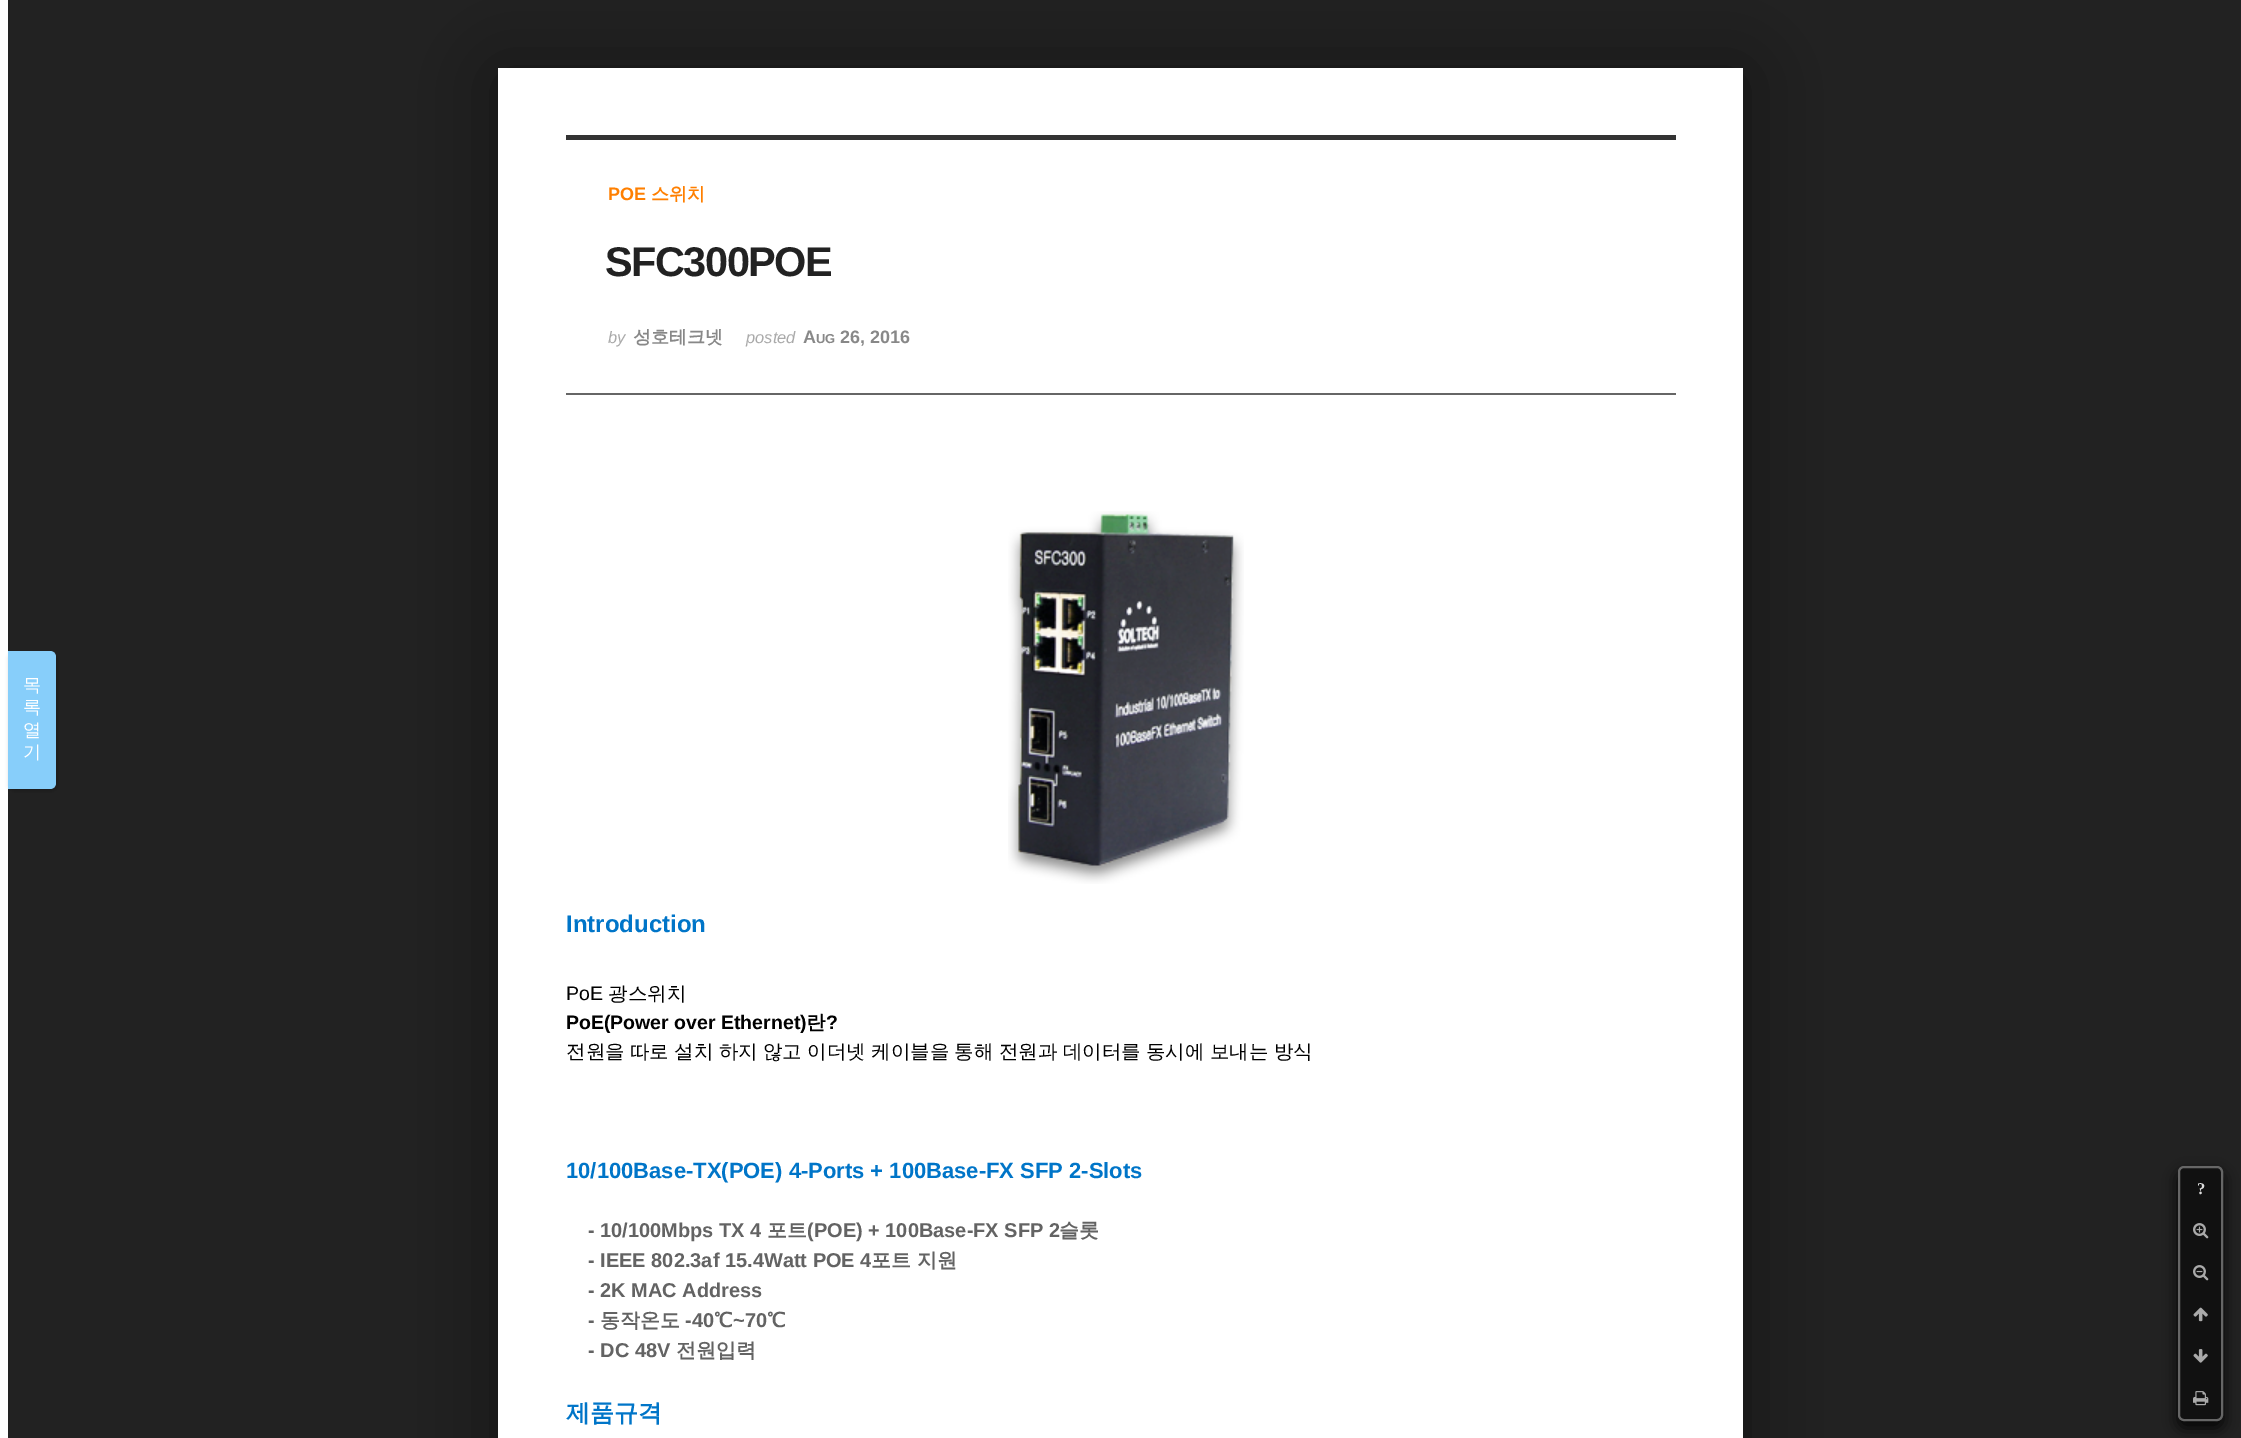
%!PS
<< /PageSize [2241 1438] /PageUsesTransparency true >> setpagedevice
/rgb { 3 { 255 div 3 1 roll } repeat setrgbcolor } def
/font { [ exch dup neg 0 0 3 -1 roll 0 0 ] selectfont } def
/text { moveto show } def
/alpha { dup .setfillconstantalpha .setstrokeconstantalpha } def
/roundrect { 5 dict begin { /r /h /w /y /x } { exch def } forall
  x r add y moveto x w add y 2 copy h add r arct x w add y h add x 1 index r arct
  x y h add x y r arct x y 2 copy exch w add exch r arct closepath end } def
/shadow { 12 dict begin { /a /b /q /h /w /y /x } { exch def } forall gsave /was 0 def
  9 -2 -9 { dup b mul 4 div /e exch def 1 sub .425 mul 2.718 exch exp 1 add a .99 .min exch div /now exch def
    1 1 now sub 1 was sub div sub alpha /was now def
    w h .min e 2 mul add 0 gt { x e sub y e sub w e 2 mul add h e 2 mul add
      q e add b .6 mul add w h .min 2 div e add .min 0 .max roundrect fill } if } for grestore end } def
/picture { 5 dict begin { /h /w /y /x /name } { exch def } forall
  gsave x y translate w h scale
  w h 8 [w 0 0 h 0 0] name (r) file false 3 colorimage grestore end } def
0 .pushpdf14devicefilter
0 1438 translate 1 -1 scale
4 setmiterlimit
34 34 34 rgb
0 0 2241 1438 rectfill
0 0 0 rgb
498 74 1245 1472 0 36 0.5 shadow
255 255 255 rgb
498 68 1245 1370 rectfill
0 0 8 1438 rectfill
0 0 0 rgb
9 653 48 138 6 2 0.2 shadow
135 206 250 rgb
8 651 moveto 42 0 rlineto 3.5 0 6 2.5 6 6 rcurveto 0 126 rlineto 0 3.5 -2.5 6 -6 6 rcurveto -42 0 rlineto closepath fill
51 51 51 rgb
566 135 1110 5 rectfill
102 102 102 rgb
566 393 1110 2 rectfill
0 0 0 rgb
2178 1173 45 255 6 7.5 0.9 shadow
17 17 17 rgb
2179 1167 43 253 5 roundrect gsave fill grestore
102 102 102 rgb
2 setlinewidth
stroke
(img_01.rgb) 2193 1223 16 16 picture
(img_02.rgb) 2193 1265 16 16 picture
(img_03.rgb) 2193 1307 15 15 picture
(img_04.rgb) 2193 1349 15 14 picture
(img_05.rgb) 2193 1391 16 15 picture
(img_06.rgb) 1008 511 236 373 picture
/WenQuanYiZenHei-Medium 18 font
255 255 255 rgb
(목) 23 691 text
(록) 23 713 text
(열) 23 736 text
(기) 23 758 text
/LiberationSans-Bold 18 font
255 127 0 rgb
(POE) 608 200 text
/WenQuanYiZenHei-Bold 18 font
(스위치) 651 200 text
/LiberationSans-Bold 41.5 font
34 34 34 rgb
605 276 moveto -1.5 0 (SFC300POE) ashow
/LiberationSans-Italic 16.5 font
170 170 170 rgb
(by) 608 343 text
/WenQuanYiZenHei-Bold 18 font
136 136 136 rgb
(성호테크넷) 633 343 text
/LiberationSans-Italic 16.5 font
170 170 170 rgb
(posted) 746 343 text
/LiberationSans-Bold 18 font
136 136 136 rgb
(A) 803 343 text
/LiberationSans-Bold 13 font
(UG) 816 343 text
/LiberationSans-Bold 18 font
(26, 2016) 840 343 text
/LiberationSerif-Bold 16.5 font
221 221 221 rgb
2197 1194 moveto -1.5 0 (?) ashow
/LiberationSans-Bold 24 font
0 117 200 rgb
(Introduction) 566 932 text
/LiberationSans-Regular 19.5 font
0 0 0 rgb
(PoE) 566 1000 text
/WenQuanYiZenHei-Medium 19.5 font
(광스위치) 608 1000 text
/LiberationSans-Bold 19.5 font
(PoE\(Power over Ethernet\)) 566 1029 text
/WenQuanYiZenHei-Bold 19.5 font
(란) 806 1029 text
/LiberationSans-Bold 19.5 font
(?) 826 1029 text
/WenQuanYiZenHei-Medium 19.5 font
566 1058 moveto -0.5 0 32 (전원을 따로 설치 하지 않고 이더넷 케이블을 통해 전원과 데이터를 동시에 보내는 방식) widthshow
/LiberationSans-Bold 22 font
0 117 200 rgb
(10/100Base-TX\(POE\) 4-Ports + 100Base-FX SFP 2-Slots) 566 1178 text
/LiberationSans-Bold 20 font
99 99 99 rgb
(- 10/100Mbps TX 4) 588 1237 text
/WenQuanYiZenHei-Bold 20 font
(포트) 767 1237 text
/LiberationSans-Bold 20 font
(\(POE\) + 100Base-FX SFP 2) 807 1237 text
/WenQuanYiZenHei-Bold 20 font
(슬롯) 1059 1237 text
/LiberationSans-Bold 20 font
(- IEEE 802.3af 15.4Watt POE 4) 588 1267 text
/WenQuanYiZenHei-Bold 20 font
(포트) 871 1267 text
(지원) 917 1267 text
/LiberationSans-Bold 20 font
(- 2K MAC Address) 588 1297 text
(-) 588 1327 text
/WenQuanYiZenHei-Bold 20 font
(동작온도) 600 1327 text
/LiberationSans-Bold 20 font
(-40) 685 1327 text
/WenQuanYiZenHei-Bold 20 font
(℃) 714 1327 text
/LiberationSans-Bold 20 font
(~70) 733 1327 text
/WenQuanYiZenHei-Bold 20 font
(℃) 767 1327 text
/LiberationSans-Bold 20 font
(- DC 48V) 588 1357 text
/WenQuanYiZenHei-Bold 20 font
(전원입력) 676 1357 text
/WenQuanYiZenHei-Bold 24 font
0 117 200 rgb
(제품규격) 566 1421 text
.poppdf14devicefilter showpage
